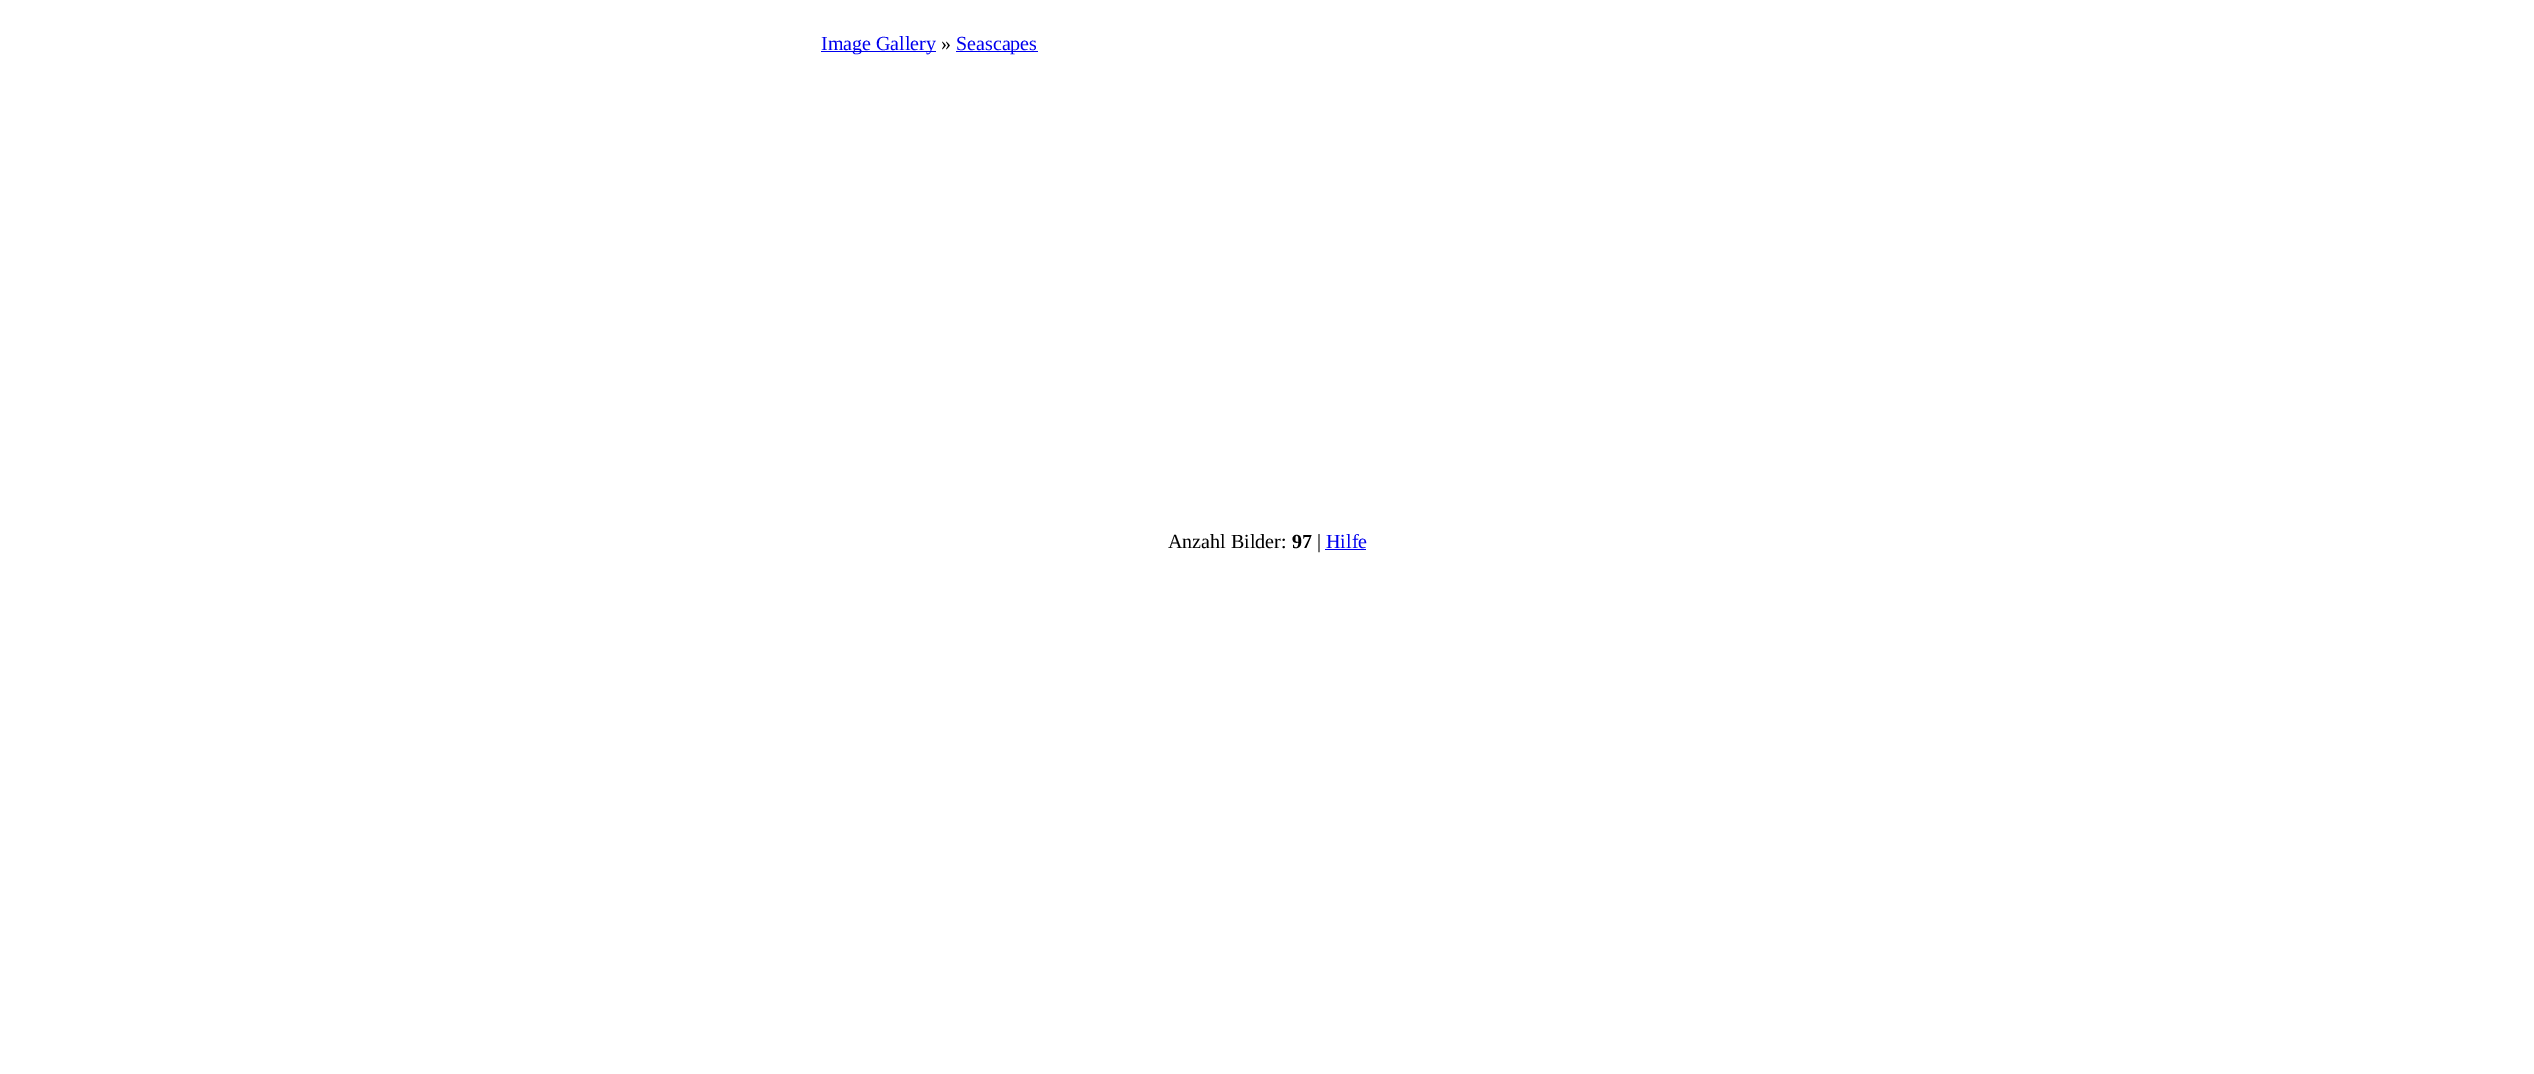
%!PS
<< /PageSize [2534 1074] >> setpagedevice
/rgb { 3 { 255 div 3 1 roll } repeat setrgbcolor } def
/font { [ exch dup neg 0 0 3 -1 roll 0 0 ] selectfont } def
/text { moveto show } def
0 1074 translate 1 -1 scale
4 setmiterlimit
255 255 255 rgb
0 0 2534 1074 rectfill
0 0 238 rgb
821 51 115 1 rectfill
956 51 82 1 rectfill
1325 549 41 1 rectfill
/LiberationSerif-Regular 20 font
(Image Gallery) 821 50 text
0 0 0 rgb
(») 941 50 text
0 0 238 rgb
(Seascapes) 956 50 text
0 0 0 rgb
(Anzahl Bilder:) 1168 548 text
/LiberationSerif-Bold 20 font
(97) 1292 548 text
/LiberationSerif-Regular 20 font
(|) 1317 548 text
0 0 238 rgb
(Hilfe) 1326 548 text
showpage
